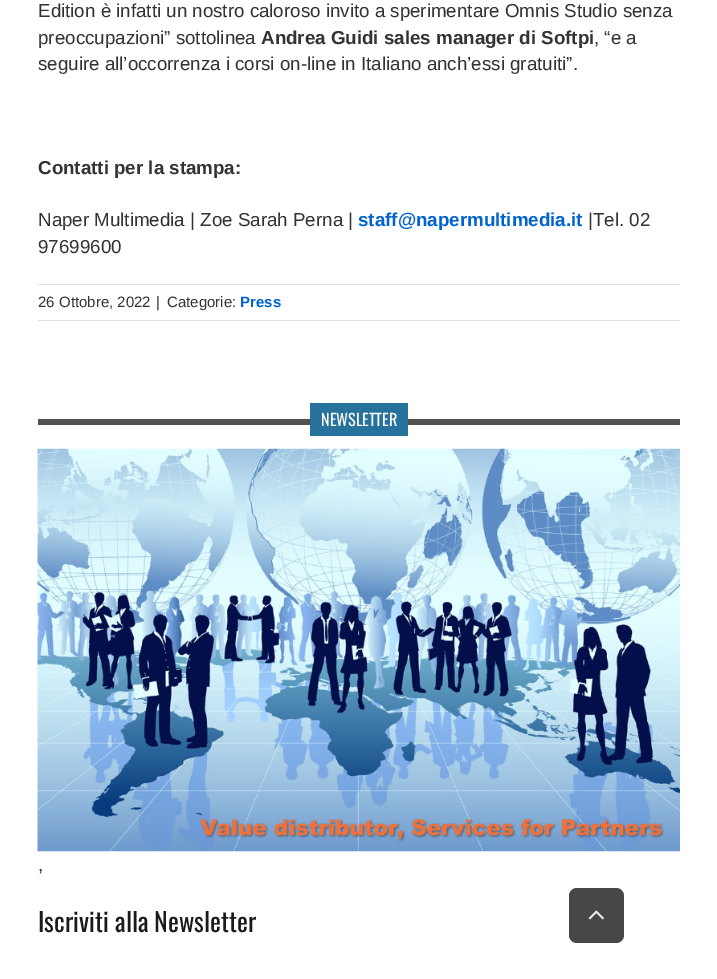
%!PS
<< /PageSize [717 979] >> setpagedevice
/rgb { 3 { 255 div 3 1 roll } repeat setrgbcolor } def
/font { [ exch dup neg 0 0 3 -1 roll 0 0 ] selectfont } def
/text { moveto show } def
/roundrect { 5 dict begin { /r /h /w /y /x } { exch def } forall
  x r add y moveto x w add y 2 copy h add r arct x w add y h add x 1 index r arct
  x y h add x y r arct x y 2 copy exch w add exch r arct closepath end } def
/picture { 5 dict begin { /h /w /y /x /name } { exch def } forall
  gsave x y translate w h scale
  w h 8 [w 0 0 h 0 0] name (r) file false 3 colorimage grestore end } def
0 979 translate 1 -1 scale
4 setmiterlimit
255 255 255 rgb
0 0 717 979 rectfill
224 222 222 rgb
38 284 642 1 rectfill
38 320 642 1 rectfill
81 81 81 rgb
38 419 642 6 rectfill
38 114 156 rgb
310 403 98 33 rectfill
(img_01.rgb) 37 448 643 404 picture
71 71 71 rgb
569 888 55 55 8 roundrect fill
(img_02.rgb) 588 910 16 10 picture
/LiberationSans-Regular 18.75 font
51 51 51 rgb
(Edition è infatti un nostro caloroso invito a sperimentare Omnis Studio senza) 38 17 text
(preoccupazioni” sottolinea) 38 44 text
/LiberationSans-Bold 18.75 font
(Andrea Guidi sales manager di Softpi) 261 44 text
/LiberationSans-Regular 18.75 font
(, “e a) 594 44 text
(seguire all’occorrenza i corsi on-line in Italiano anch’essi gratuiti”.) 38 70 text
/LiberationSans-Bold 18.75 font
(Contatti per la stampa:) 38 174 text
/LiberationSans-Regular 18.75 font
(Naper Multimedia | Zoe Sarah Perna |) 38 226 text
/LiberationSans-Bold 18.75 font
0 99 208 rgb
(staff@napermultimedia.it) 358 226 text
/LiberationSans-Regular 18.75 font
51 51 51 rgb
(|Tel. 02) 588 226 text
(97699600) 38 253 text
/LiberationSans-Regular 15 font
(26 Ottobre, 2022) 38 307 text
(|) 156 307 text
(Categorie:) 167 307 text
/LiberationSans-Bold 15 font
0 99 208 rgb
(Press) 240 307 text
/Oswald-Regular 16.25 font
255 255 255 rgb
(NEWSLETTER) 321 426 text
/LiberationSans-Regular 18.75 font
51 51 51 rgb
(,) 38 871 text
/Oswald-Regular 26 font
26 26 26 rgb
(Iscriviti alla Newsletter) 38 932 text
showpage
